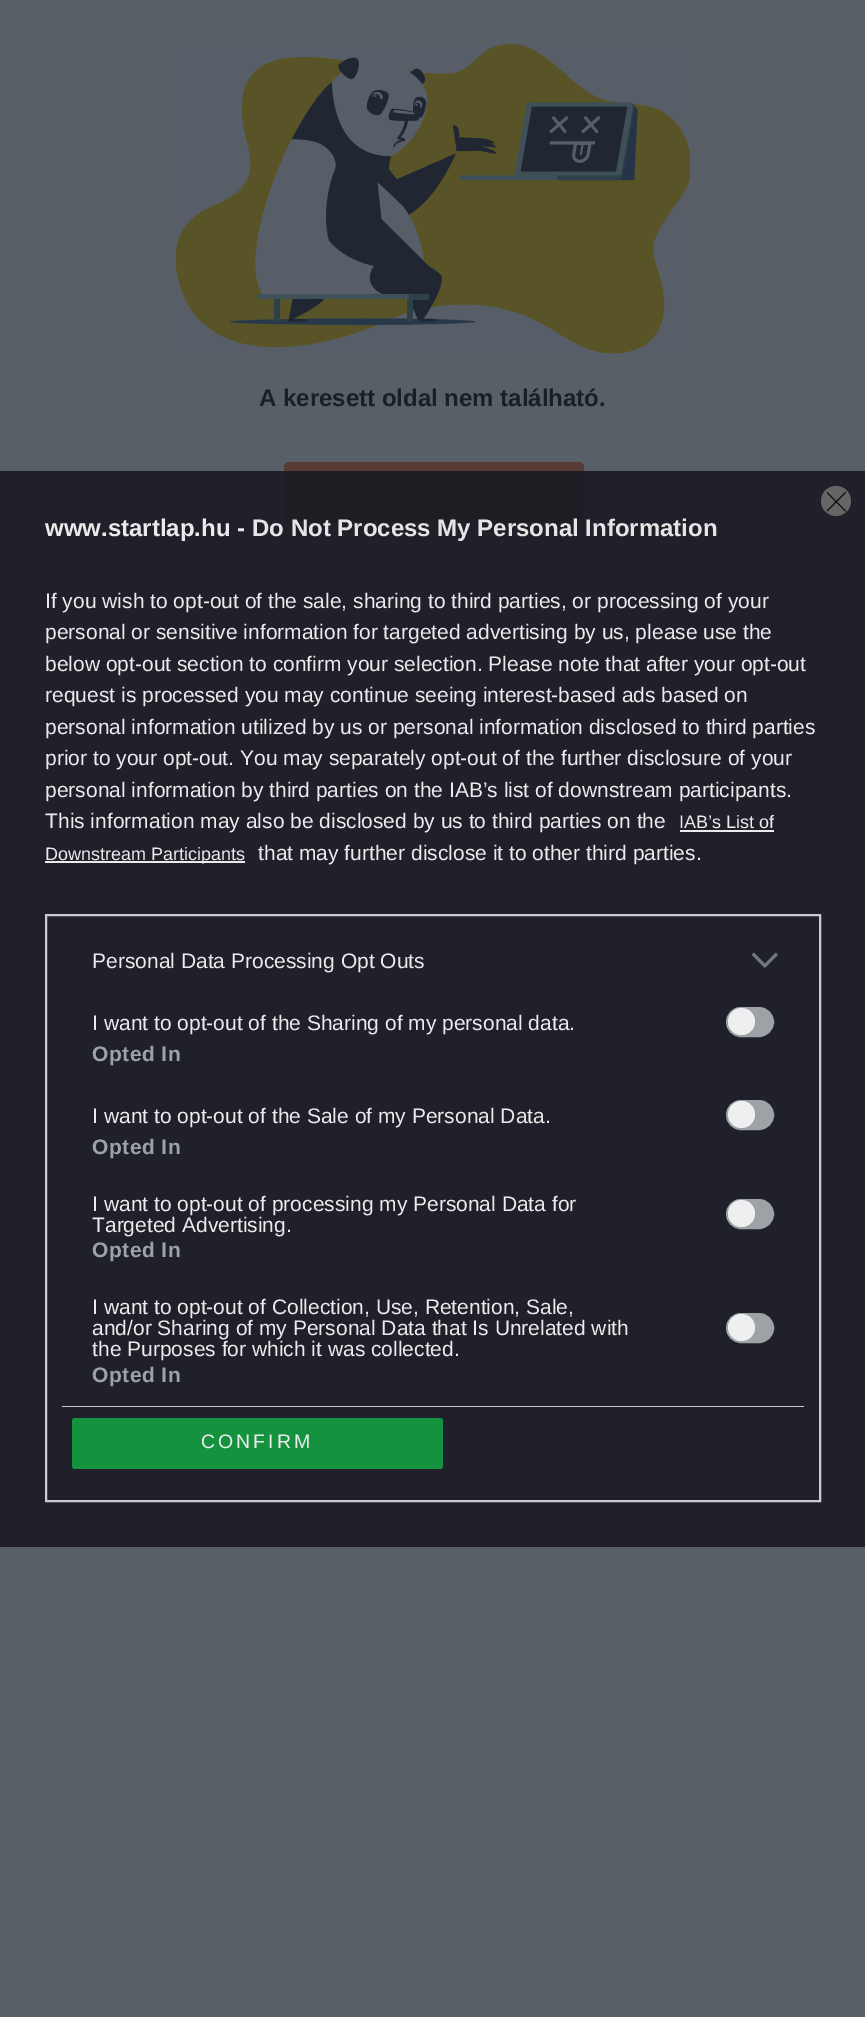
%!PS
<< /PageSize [865 2017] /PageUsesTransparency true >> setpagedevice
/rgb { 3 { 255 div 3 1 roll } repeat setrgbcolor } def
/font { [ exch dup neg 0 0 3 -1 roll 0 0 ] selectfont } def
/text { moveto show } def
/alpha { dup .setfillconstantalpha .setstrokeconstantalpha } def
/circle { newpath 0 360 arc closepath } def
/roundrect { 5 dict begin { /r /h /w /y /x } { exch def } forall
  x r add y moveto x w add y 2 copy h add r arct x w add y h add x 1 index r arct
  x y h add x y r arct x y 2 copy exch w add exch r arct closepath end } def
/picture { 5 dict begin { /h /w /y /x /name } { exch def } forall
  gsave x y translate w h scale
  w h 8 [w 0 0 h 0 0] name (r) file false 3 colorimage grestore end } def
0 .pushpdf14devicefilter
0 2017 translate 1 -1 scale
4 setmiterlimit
89 95 103 rgb
0 0 865 2017 rectfill
(img_01.rgb) 176 44 514 310 picture
89 57 52 rgb
284 462 300 60 5 roundrect fill
0.9 alpha
25 25 34 rgb
0 471 865 1076 rectfill
1 alpha
101 101 102 rgb
836 501 15 circle fill
gsave
827 492 19 20 rectclip
9 9 10 rgb
0.8 setlinewidth
1 setlinecap
1 setlinejoin
827 492.5 moveto 18.5 18.5 rlineto 845.5 492.5 moveto -18.5 18.5 rlineto stroke
grestore
235 235 236 rgb
680 830 94 2 rectfill
45 861 200 2 rectfill
203 204 205 rgb
2 setlinewidth
46 915 774 586 rectstroke
62 1406 742 1 rectfill
(img_02.rgb) 752 952 26 16 picture
158 162 167 rgb
727 1008 46 28 14 roundrect gsave fill grestore
stroke
238 239 240 rgb
741.5 1021.5 13.5 circle fill
158 162 167 rgb
727 1101 46 28 14 roundrect gsave fill grestore
stroke
238 239 240 rgb
741.5 1114.5 13.5 circle fill
158 162 167 rgb
727 1200 46 28 14 roundrect gsave fill grestore
stroke
238 239 240 rgb
741.5 1213.5 13.5 circle fill
158 162 167 rgb
727 1314 46 28 14 roundrect gsave fill grestore
stroke
238 239 240 rgb
741.5 1327.5 13.5 circle fill
21 146 62 rgb
72 1418 371 51 3 roundrect fill
/LiberationSans-Bold 24 font
25 31 39 rgb
(A keresett oldal nem található.) 259 406 text
235 235 236 rgb
(www.startlap.hu -) 45 536 text
229 229 230 rgb
(Do Not Process My Personal Information) 252 536 text
/LiberationSans-Regular 21 font
235 235 236 rgb
(If you wish to opt-out of the sale, sharing to third parties, or processing of your) 45 608 text
(personal or sensitive information for targeted advertising by us, please use the) 45 639 text
(below opt-out section to confirm your selection. Please note that after your opt-out) 45 671 text
(request is processed you may continue seeing interest-based ads based on) 45 702 text
(personal information utilized by us or personal information disclosed to third parties) 45 734 text
(prior to your opt-out. You may separately opt-out of the further disclosure of your) 45 765 text
(personal information by third parties on the IAB’s list of downstream participants.) 45 797 text
(This information may also be disclosed by us to third parties on the) 45 828 text
/LiberationSans-Regular 18 font
(IAB’s List of) 679 828 text
(Downstream Participants) 45 860 text
/LiberationSans-Regular 21 font
(that may further disclose it to other third parties.) 258 860 text
(Personal Data Processing Opt Outs) 92 968 text
(I want to opt-out of the Sharing of my personal data.) 92 1030 text
/LiberationSans-Bold 21 font
158 162 167 rgb
92 1061 moveto 0.5 0 (Opted In) ashow
/LiberationSans-Regular 21 font
235 235 236 rgb
(I want to opt-out of the Sale of my Personal Data.) 92 1123 text
/LiberationSans-Bold 21 font
158 162 167 rgb
92 1154 moveto 0.5 0 (Opted In) ashow
/LiberationSans-Regular 21 font
235 235 236 rgb
(I want to opt-out of processing my Personal Data for) 92 1211 text
(Targeted Advertising.) 92 1232 text
/LiberationSans-Bold 21 font
158 162 167 rgb
92 1257 moveto 0.5 0 (Opted In) ashow
/LiberationSans-Regular 21 font
235 235 236 rgb
(I want to opt-out of Collection, Use, Retention, Sale,) 92 1314 text
(and/or Sharing of my Personal Data that Is Unrelated with) 92 1335 text
(the Purposes for which it was collected.) 92 1356 text
/LiberationSans-Bold 21 font
158 162 167 rgb
92 1382 moveto 0.5 0 (Opted In) ashow
/LiberationSans-Regular 19.5 font
235 235 236 rgb
201 1448 moveto 3 0 (CONFIRM) ashow
.poppdf14devicefilter showpage
